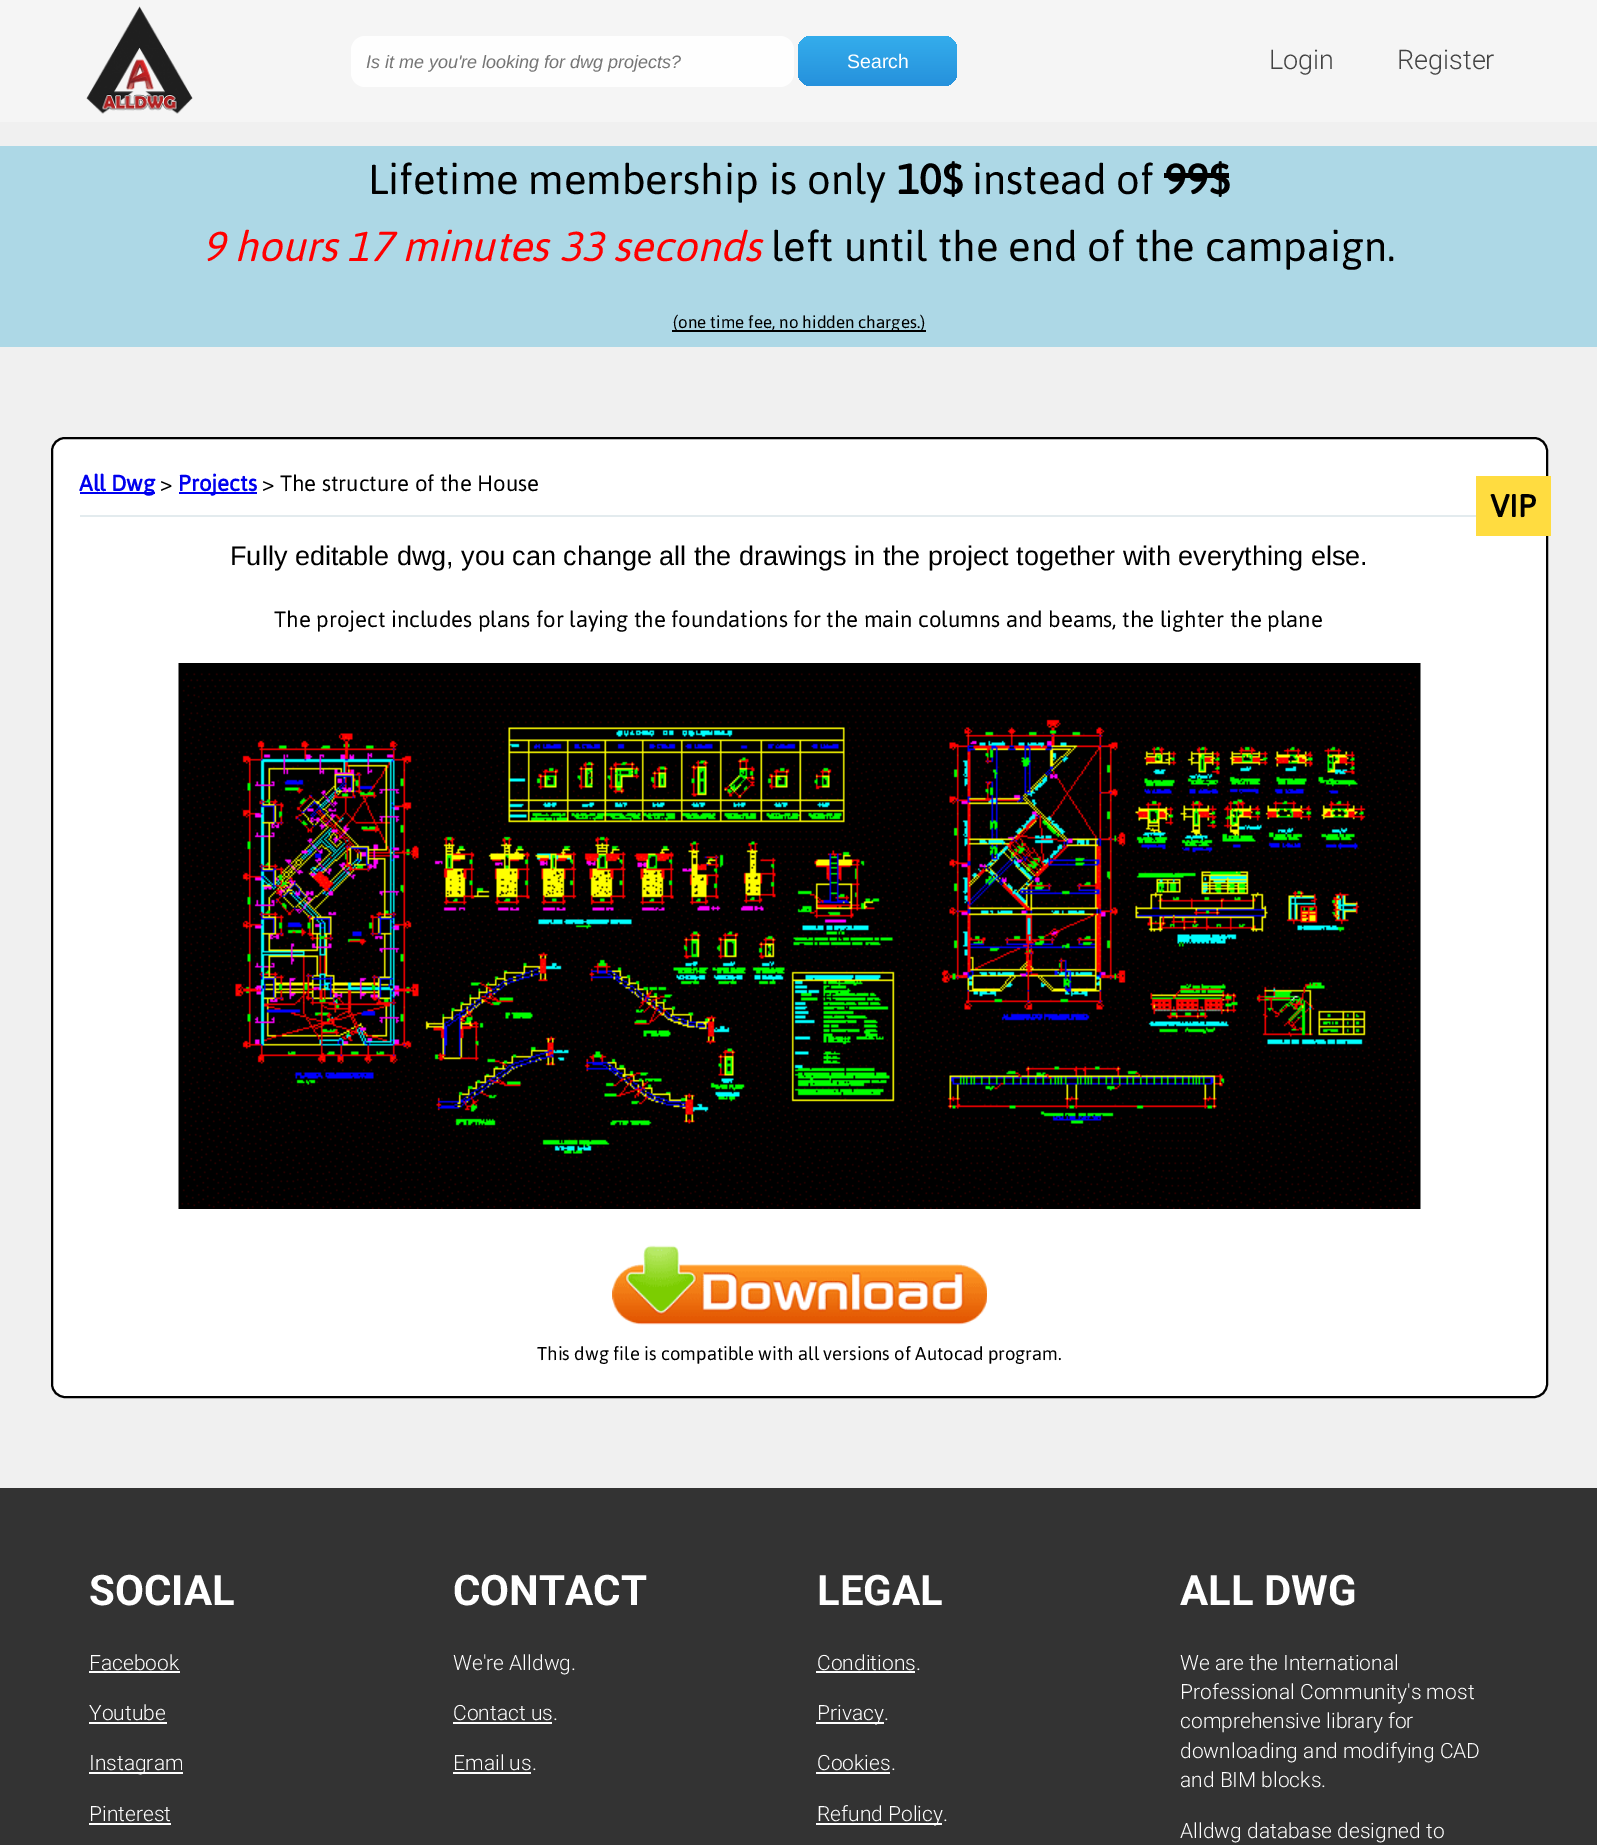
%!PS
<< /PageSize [1597 1845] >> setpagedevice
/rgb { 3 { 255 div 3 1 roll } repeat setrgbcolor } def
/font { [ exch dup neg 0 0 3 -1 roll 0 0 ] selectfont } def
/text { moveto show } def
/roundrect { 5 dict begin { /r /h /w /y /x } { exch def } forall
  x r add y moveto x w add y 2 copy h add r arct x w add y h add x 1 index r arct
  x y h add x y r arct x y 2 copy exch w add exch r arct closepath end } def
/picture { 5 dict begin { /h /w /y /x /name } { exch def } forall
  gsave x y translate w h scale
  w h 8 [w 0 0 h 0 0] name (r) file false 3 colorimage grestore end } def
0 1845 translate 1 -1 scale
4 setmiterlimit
240 240 240 rgb
0 0 1597 1845 rectfill
245 245 245 rgb
0 0 1597 122 rectfill
(img_01.rgb) 86 6 107 108 picture
254 254 254 rgb
351 36 443 51 14 roundrect fill
gsave 798 36 159 50 14 roundrect clip newpath
<< /ShadingType 2 /ColorSpace /DeviceRGB /Coords [878 36 878 86] /Extend [true true] /Function << /FunctionType 2 /Domain [0 1] /C0 [0.204 0.678 0.925] /C1 [0.149 0.569 0.863] /N 1 >> >> shfill grestore
173 216 230 rgb
0 146 1597 201 rectfill
0 0 0 rgb
1164 173 65 5 rectfill
672 330 254 2 rectfill
255 255 255 rgb
52 438 1495 959 13 roundrect gsave fill grestore
0 0 0 rgb
2 setlinewidth
stroke
0 0 238 rgb
80 492 75 2 rectfill
179 492 78 2 rectfill
227 235 238 rgb
80 515 1396 2 rectfill
255 220 64 rgb
1476 476 75 60 rectfill
(img_02.rgb) 178 663 1243 546 picture
(img_03.rgb) 612 1245 375 80 picture
51 51 51 rgb
0 1488 1597 357 rectfill
255 255 255 rgb
89 1671 91 2 rectfill
89 1722 78 2 rectfill
89 1772 94 2 rectfill
89 1823 82 2 rectfill
453 1722 99 2 rectfill
453 1772 78 2 rectfill
816 1671 99 2 rectfill
816 1722 68 2 rectfill
816 1772 74 2 rectfill
816 1823 126 2 rectfill
/LiberationSans-Italic 18 font
117 117 117 rgb
(Is it me you're looking for dwg projects?) 366 68 text
/LiberationSans-Regular 19.5 font
255 255 255 rgb
(Search) 847 68 text
/Roboto-Light 27 font
68 68 68 rgb
(Login) 1269 69 text
(Register) 1397 69 text
/Jaldi-Regular 48 font
0 0 0 rgb
(Lifetime membership is only) 368 194 text
/Jaldi-Bold 48 font
(10$) 897 194 text
/Jaldi-Regular 48 font
(instead of) 972 194 text
/Jaldi-Bold 48 font
(99$) 1164 194 text
/Jaldi-Italic 48 font
255 0 0 rgb
(9 hours 17 minutes 33 seconds) 202 261 text
/Jaldi-Regular 48 font
0 0 0 rgb
(left until the end of the campaign.) 771 261 text
/Jaldi-Regular 19.5 font
(\(one time fee, no hidden charges.\)) 673 328 text
/Jaldi-Bold 25.5 font
0 0 238 rgb
(All Dwg) 79 491 text
/Jaldi-Regular 25.5 font
0 0 0 rgb
(>) 160 491 text
/Jaldi-Bold 25.5 font
0 0 238 rgb
(Projects) 178 491 text
/Jaldi-Regular 25.5 font
0 0 0 rgb
(> The structure of the House) 262 491 text
/Jaldi-Bold 36 font
(VIP) 1490 517 text
/LiberationSans-Regular 27 font
(Fully editable dwg, you can change all the drawings in the project together with everything else.) 230 565 text
/Jaldi-Regular 25.5 font
(The project includes plans for laying the foundations for the main columns and beams, the lighter the plane) 274 627 text
/Jaldi-Regular 21.25 font
(This dwg file is compatible with all versions of Autocad program.) 537 1360 text
/Roboto-Bold 42 font
255 255 255 rgb
(SOCIAL) 89 1605 text
/Roboto-Light 21 font
(Facebook) 89 1670 text
(Youtube) 89 1720 text
(Instagram) 89 1770 text
(Pinterest) 89 1821 text
/Roboto-Bold 42 font
(CONTACT) 453 1605 text
/Roboto-Light 21 font
(We're Alldwg.) 453 1670 text
(Contact us.) 453 1720 text
(Email us.) 453 1770 text
/Roboto-Bold 42 font
(LEGAL) 817 1605 text
/Roboto-Light 21 font
(Conditions.) 817 1670 text
(Privacy.) 817 1720 text
(Cookies.) 817 1770 text
(Refund Policy.) 817 1821 text
/Roboto-Bold 42 font
(ALL DWG) 1180 1605 text
/Roboto-Light 21 font
(We are the International) 1180 1670 text
(Professional Community's most) 1180 1699 text
(comprehensive library for) 1180 1728 text
(downloading and modifying CAD) 1180 1758 text
(and BIM blocks.) 1180 1787 text
(Alldwg database designed to) 1180 1838 text
showpage
